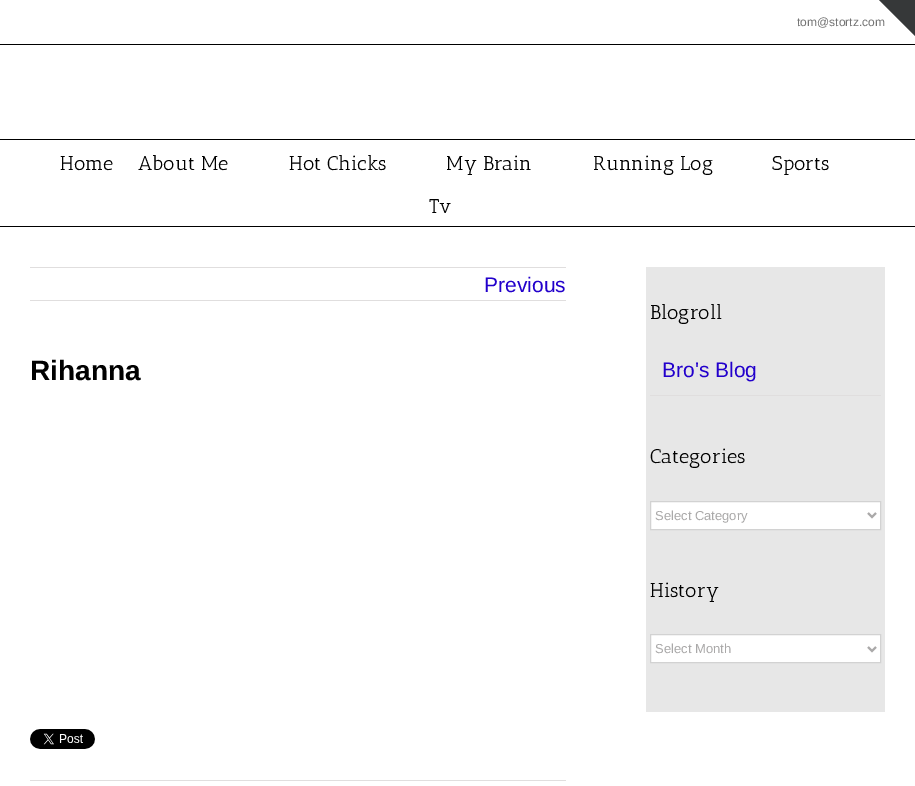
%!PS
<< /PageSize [915 786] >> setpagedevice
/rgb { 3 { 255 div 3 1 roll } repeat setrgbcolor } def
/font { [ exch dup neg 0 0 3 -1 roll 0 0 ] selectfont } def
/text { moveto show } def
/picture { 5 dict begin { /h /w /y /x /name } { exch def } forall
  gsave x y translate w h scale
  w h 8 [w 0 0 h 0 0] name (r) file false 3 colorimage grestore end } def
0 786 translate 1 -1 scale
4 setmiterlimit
255 255 255 rgb
0 0 915 786 rectfill
0 0 0 rgb
0 44 915 1 rectfill
0 139 915 1 rectfill
0 226 915 1 rectfill
224 222 222 rgb
30 267 536 1 rectfill
30 300 536 1 rectfill
(img_01.rgb) 30 729 65 20 picture
30 780 536 1 rectfill
231 231 231 rgb
646 267 239 445 rectfill
224 222 222 rgb
650 395 231 1 rectfill
255 255 255 rgb
650.5 501.5 moveto 230 0 rlineto 0 28 rlineto -230 0 rlineto closepath gsave fill grestore
210 210 210 rgb
stroke
170 169 169 rgb
2 setlinewidth
868 513 moveto 4 4 rlineto 4 -4 rlineto stroke
255 255 255 rgb
650.5 634.5 moveto 230 0 rlineto 0 28 rlineto -230 0 rlineto closepath gsave fill grestore
210 210 210 rgb
1 setlinewidth
stroke
170 169 169 rgb
2 setlinewidth
868 647 moveto 4 4 rlineto 4 -4 rlineto stroke
/LiberationSans-Regular 12 font
116 116 116 rgb
(tom@stortz.com) 797 26 text
/AnticSlab-Regular 20 font
0 0 0 rgb
(Home) 60 170 text
(About Me) 138 170 text
(Hot Chicks) 289 170 text
(My Brain) 446 170 text
(Running Log) 593 170 text
(Sports) 772 170 text
(Tv) 429 213 text
54 56 57 rgb
879 0 moveto 36 0 rlineto 0 36 rlineto closepath fill
/LiberationSans-Regular 21 font
34 0 204 rgb
(Previous) 484 292 text
/LiberationSans-Bold 28 font
0 0 0 rgb
(Rihanna) 30 380 text
/AnticSlab-Regular 20 font
(Blogroll) 650 319 text
/LiberationSans-Regular 21 font
34 0 204 rgb
(Bro's Blog) 662 377 text
/AnticSlab-Regular 20 font
0 0 0 rgb
(Categories) 650 463 text
/LiberationSans-Regular 13 font
170 169 169 rgb
(Select Category) 655 520 text
/AnticSlab-Regular 20 font
0 0 0 rgb
(History) 650 597 text
/LiberationSans-Regular 13 font
170 169 169 rgb
(Select Month) 655 653 text
showpage
